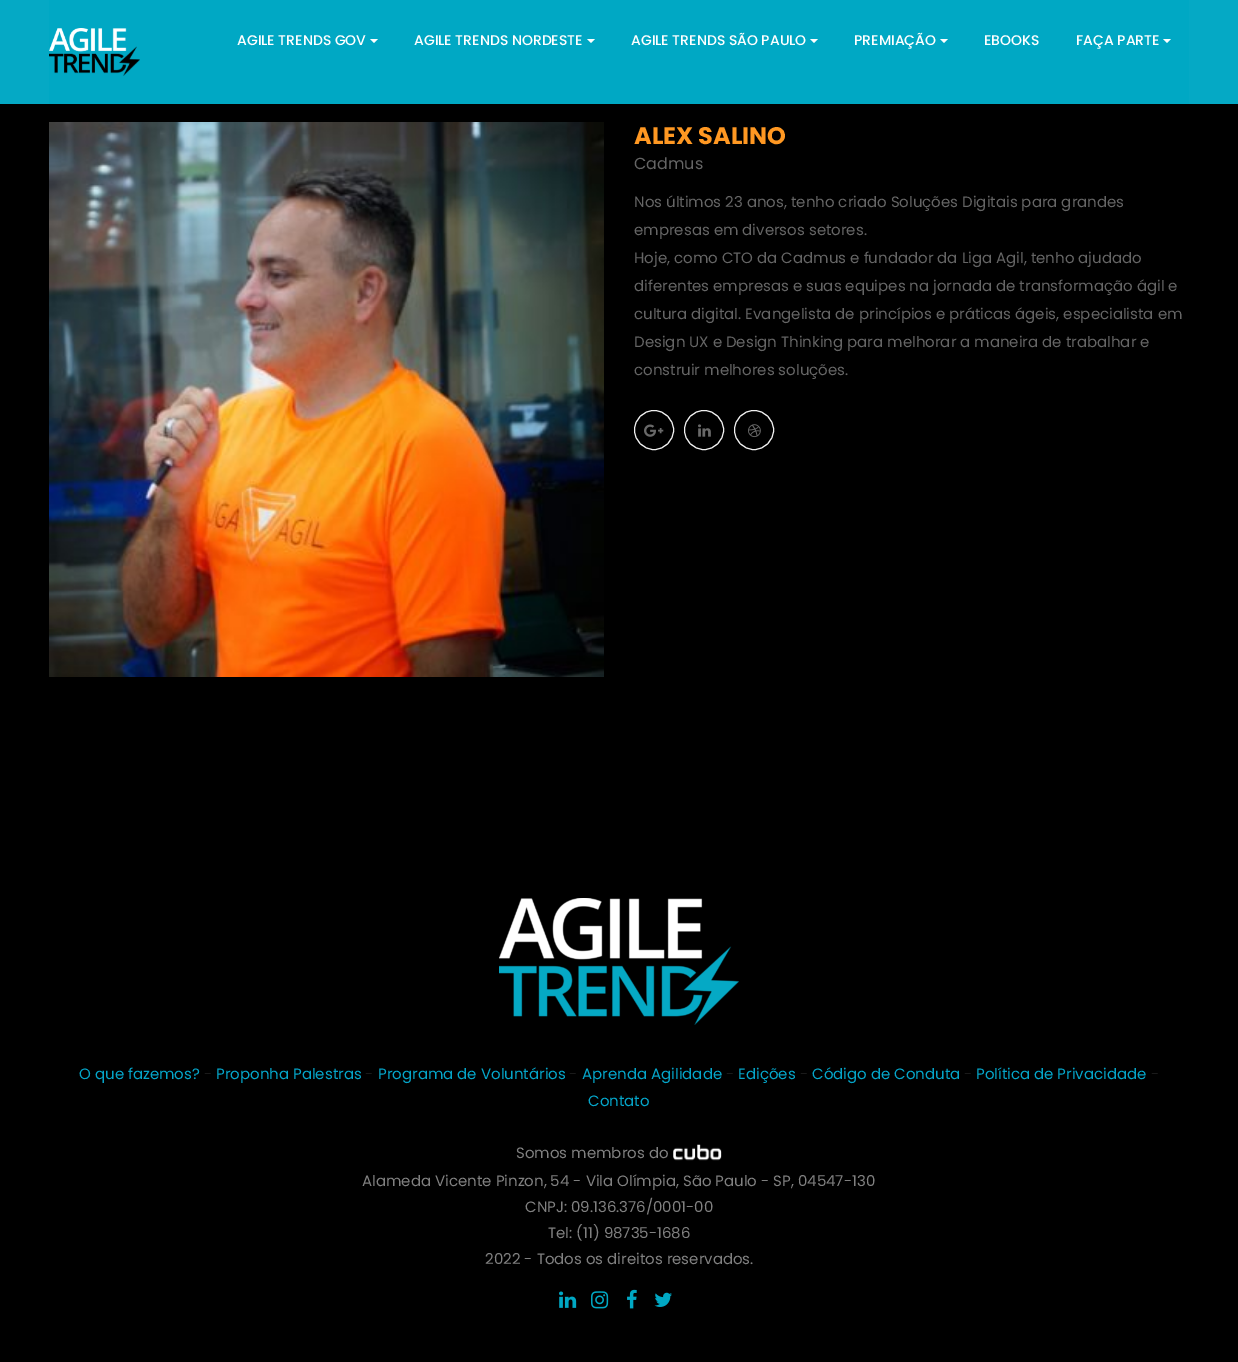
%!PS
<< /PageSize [1238 1362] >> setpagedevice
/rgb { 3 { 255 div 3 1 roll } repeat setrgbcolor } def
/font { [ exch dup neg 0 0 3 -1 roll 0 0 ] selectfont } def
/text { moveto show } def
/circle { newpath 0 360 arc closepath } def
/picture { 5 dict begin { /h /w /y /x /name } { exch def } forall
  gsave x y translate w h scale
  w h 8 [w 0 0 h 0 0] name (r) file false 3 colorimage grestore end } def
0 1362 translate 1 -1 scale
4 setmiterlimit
0 0 0 rgb
0 0 1238 1362 rectfill
5 169 197 rgb
0 0 1238 104 rectfill
0 168 196 rgb
49 0 1140 104 rectfill
(img_01.rgb) 49 28 91 48 picture
255 255 255 rgb
370 39 moveto 8 0 rlineto -4 4 rlineto closepath fill
587 39 moveto 8 0 rlineto -4 4 rlineto closepath fill
810 39 moveto 8 0 rlineto -4 4 rlineto closepath fill
940 39 moveto 8 0 rlineto -4 4 rlineto closepath fill
1163 39 moveto 8 0 rlineto -4 4 rlineto closepath fill
(img_02.rgb) 49 122 555 555 picture
240 240 240 rgb
654 430 19.5 circle stroke
(img_03.rgb) 644 424 20 13 picture
704 430 19.5 circle stroke
(img_04.rgb) 698 424 13 13 picture
754 430 19.5 circle stroke
(img_05.rgb) 748 424 13 14 picture
(img_06.rgb) 499 898 240 127 picture
(img_07.rgb) 673 1144 49 17 picture
(img_08.rgb) 559 1291 18 17 picture
(img_09.rgb) 591 1291 18 18 picture
(img_10.rgb) 627 1289 10 20 picture
(img_11.rgb) 654 1292 18 15 picture
/Poppins-Medium 14 font
255 255 255 rgb
(AGILE TRENDS GOV) 237 45 text
(AGILE TRENDS NORDESTE) 414 45 text
(AGILE TRENDS SÃO PAULO) 631 45 text
(PREMIAÇÃO) 854 45 text
(EBOOKS) 984 45 text
(FAÇA PARTE) 1076 45 text
/Poppins-Bold 24 font
255 152 34 rgb
(ALEX SALINO) 634 144 text
/Poppins-Regular 16 font
101 101 101 rgb
(Cadmus) 634 169 text
/Poppins-Regular 15 font
(Nos últimos 23 anos, tenho criado Soluções Digitais para grandes) 634 207 text
(empresas em diversos setores.) 634 235 text
(Hoje, como CTO da Cadmus e fundador da Liga Agil, tenho ajudado) 634 263 text
(diferentes empresas e suas equipes na jornada de transformação ágil e) 634 291 text
(cultura digital. Evangelista de princípios e práticas ágeis, especialista em) 634 319 text
(Design UX e Design Thinking para melhorar a maneira de trabalhar e) 634 347 text
(construir melhores soluções.) 634 375 text
5 165 201 rgb
(O que fazemos?) 79 1079 text
26 26 26 rgb
(-) 204 1079 text
5 165 201 rgb
(Proponha Palestras) 216 1079 text
26 26 26 rgb
(-) 365 1079 text
5 165 201 rgb
(Programa de Voluntários) 378 1079 text
26 26 26 rgb
(-) 569 1079 text
5 165 201 rgb
(Aprenda Agilidade) 582 1079 text
26 26 26 rgb
(-) 726 1079 text
5 165 201 rgb
(Edições) 738 1079 text
26 26 26 rgb
(-) 800 1079 text
5 165 201 rgb
(Código de Conduta) 812 1079 text
26 26 26 rgb
(-) 964 1079 text
5 165 201 rgb
(Política de Privacidade) 976 1079 text
26 26 26 rgb
(-) 1151 1079 text
5 165 201 rgb
(Contato) 588 1106 text
128 128 128 rgb
(Somos membros do) 516 1158 text
(Alameda Vicente Pinzon, 54 - Vila Olímpia, São Paulo - SP, 04547-130) 362 1186 text
(CNPJ: 09.136.376/0001-00) 525 1212 text
(Tel: \(11\) 98735-1686) 548 1238 text
(2022 - Todos os direitos reservados.) 485 1264 text
showpage
